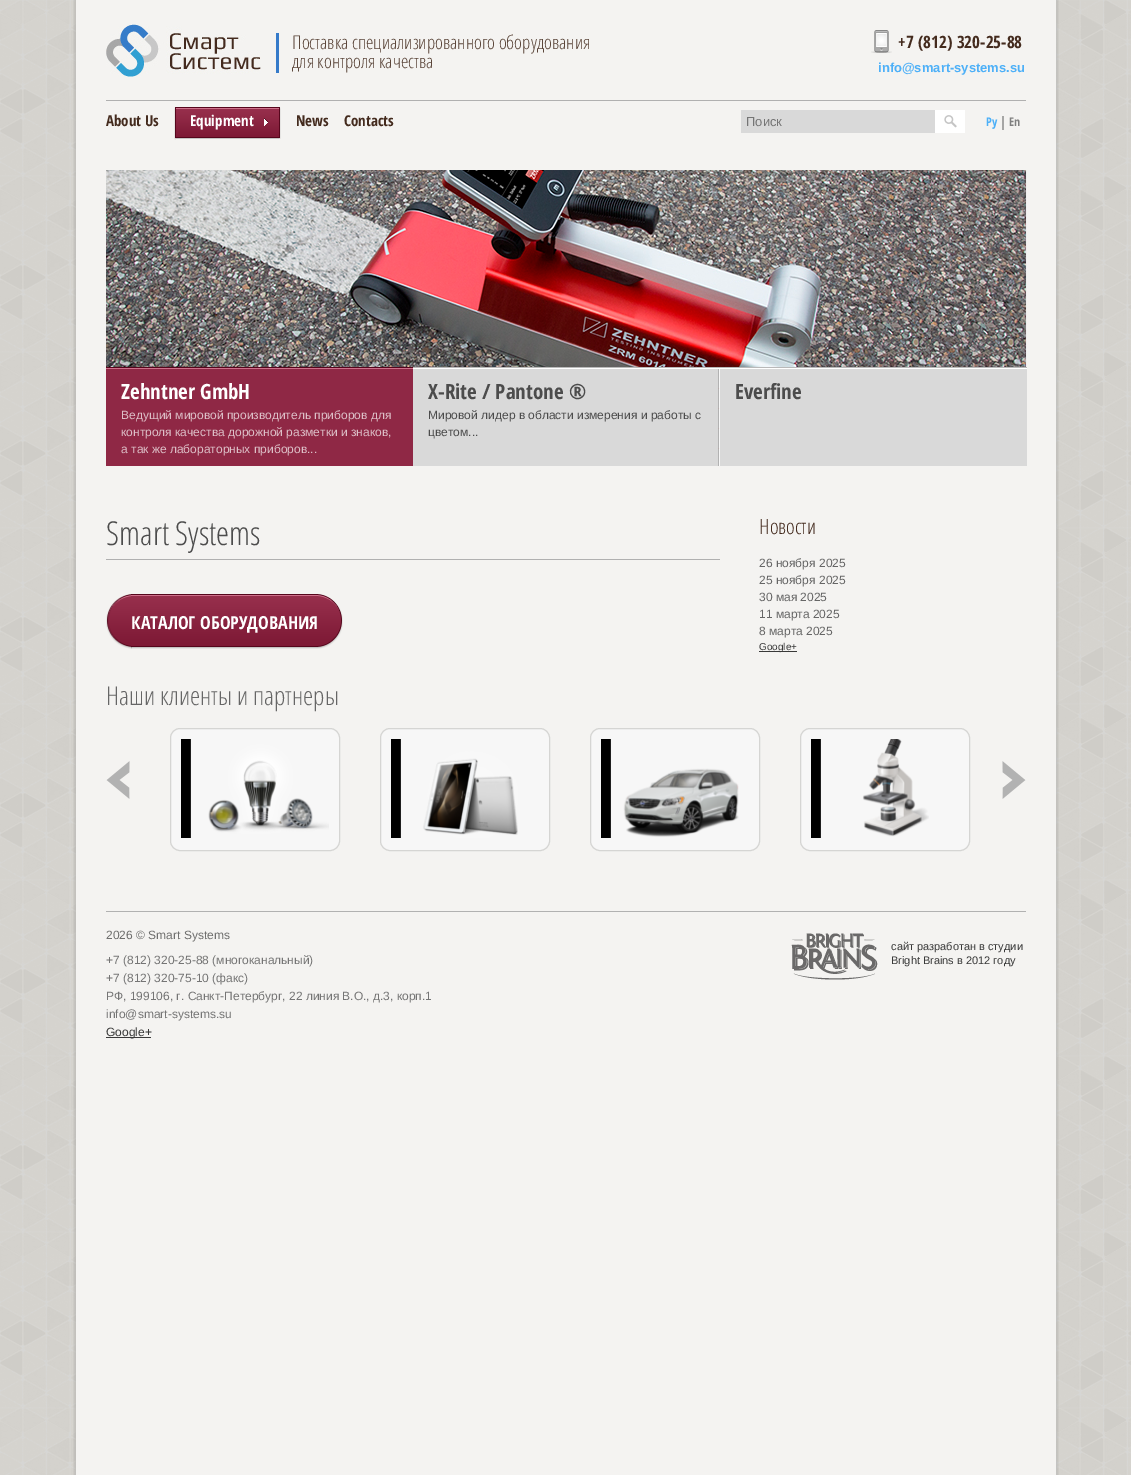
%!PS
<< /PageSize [1131 1475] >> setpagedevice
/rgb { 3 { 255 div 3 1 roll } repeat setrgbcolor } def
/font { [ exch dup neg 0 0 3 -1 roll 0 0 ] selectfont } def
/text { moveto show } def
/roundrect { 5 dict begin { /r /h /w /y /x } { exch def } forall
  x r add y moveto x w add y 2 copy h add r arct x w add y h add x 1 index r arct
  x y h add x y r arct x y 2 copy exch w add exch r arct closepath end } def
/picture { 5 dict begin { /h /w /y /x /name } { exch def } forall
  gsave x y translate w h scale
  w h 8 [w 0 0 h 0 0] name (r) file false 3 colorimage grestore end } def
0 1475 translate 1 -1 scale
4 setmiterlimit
255 255 255 rgb
0 0 1131 1475 rectfill
(img_01.rgb) 0 0 1131 1475 picture
(img_02.rgb) 73 0 986 1475 picture
176 176 176 rgb
106 100 920 1 rectfill
(img_03.rgb) 106 24 155 53 picture
53 122 201 rgb
276 33 3 40 rectfill
(img_04.rgb) 871 30 21 23 picture
(img_05.rgb) 174 107 2 33 picture
(img_06.rgb) 264 107 17 32 picture
(img_07.rgb) 176 107 88 32 picture
217 217 217 rgb
741 110 194 23 rectfill
(img_08.rgb) 935 110 30 23 picture
166 166 165 rgb
1002 116 2 14 rectfill
238 238 238 rgb
1026 170 1 197 rectfill
(img_09.rgb) 106 170 920 197 picture
143 40 69 rgb
106 369 307 97 rectfill
86 6 28 rgb
106 367 307 1 rectfill
206 111 138 rgb
106 368 307 1 rectfill
217 217 217 rgb
413 369 305 97 rectfill
(img_10.rgb) 718 369 2 97 picture
185 185 185 rgb
413 367 614 1 rectfill
255 255 255 rgb
413 368 614 1 rectfill
217 217 217 rgb
720 369 307 97 rectfill
176 176 176 rgb
106 559 614 1 rectfill
(img_11.rgb) 106 594 26 55 picture
(img_12.rgb) 318 594 25 55 picture
(img_13.rgb) 131 594 187 55 picture
57 57 57 rgb
759 651 38 1 rectfill
(img_14.rgb) 106 761 24 38 picture
247 247 247 rgb
170.5 728.5 169 122 9.5 roundrect gsave fill grestore
213 213 211 rgb
stroke
(img_15.rgb) 181 739 148 99 picture
247 247 247 rgb
380.5 728.5 169 122 9.5 roundrect gsave fill grestore
213 213 211 rgb
stroke
(img_16.rgb) 391 739 127 99 picture
247 247 247 rgb
590.5 728.5 169 122 9.5 roundrect gsave fill grestore
213 213 211 rgb
stroke
(img_17.rgb) 601 739 138 99 picture
247 247 247 rgb
800.5 728.5 169 122 9.5 roundrect gsave fill grestore
213 213 211 rgb
stroke
(img_18.rgb) 811 739 118 99 picture
(img_19.rgb) 1002 761 24 38 picture
177 177 177 rgb
106 911 920 1 rectfill
57 57 57 rgb
106 1037 45 1 rectfill
(img_20.rgb) 791 933 87 47 picture
/OpenSansCondensed-Light 19 font
91 70 58 rgb
(Поставка специализированного оборудования) 292 49 text
(для контроля качества) 292 68 text
/OpenSansCondensed-Bold 17 font
68 43 30 rgb
(+7 \(812\) 320-25-88) 898 48 text
/LiberationSans-Bold 13 font
77 176 248 rgb
(info@smart-systems.su) 878 72 text
/OpenSansCondensed-Bold 15 font
68 43 30 rgb
(About Us) 106 126 text
255 255 255 rgb
(Equipment) 190 126 text
68 43 30 rgb
(News) 296 126 text
(Contacts) 344 126 text
/LiberationSans-Regular 13 font
117 117 117 rgb
(Поиск) 746 126 text
/OpenSansCondensed-Bold 12 font
77 176 248 rgb
(Ру) 986 126 text
127 127 127 rgb
(En) 1009 126 text
/OpenSansCondensed-Bold 21 font
255 255 255 rgb
(Zehntner GmbH) 121 399 text
/LiberationSans-Regular 12 font
221 191 199 rgb
(Ведущий мировой производитель приборов для) 121 419 text
(контроля качества дорожной разметки и знаков,) 121 436 text
(а так же лабораторных приборов...) 121 453 text
/OpenSansCondensed-Bold 21 font
76 76 76 rgb
(X-Rite / Pantone ®) 428 399 text
/LiberationSans-Regular 12 font
(Мировой лидер в области измерения и работы с) 428 419 text
(цветом...) 428 436 text
/OpenSansCondensed-Bold 21 font
(Everfine) 735 399 text
/OpenSansCondensed-Light 33 font
(Smart Systems) 106 545 text
/OpenSansCondensed-Bold 18 font
255 255 255 rgb
(КАТАЛОГ ОБОРУДОВАНИЯ) 131 629 text
/OpenSansCondensed-Light 21 font
68 43 30 rgb
(Новости) 759 534 text
/LiberationSans-Regular 12 font
102 102 102 rgb
(26 ноября 2025) 759 567 text
(25 ноября 2025) 759 584 text
(30 мая 2025) 759 601 text
(11 марта 2025) 759 618 text
(8 марта 2025) 759 635 text
/LiberationSans-Regular 10 font
57 57 57 rgb
(Google+) 759 650 text
/OpenSansCondensed-Light 26 font
102 102 102 rgb
(Наши клиенты и партнеры) 106 705 text
/LiberationSans-Regular 12 font
111 111 110 rgb
(2026 © Smart Systems) 106 939 text
117 117 117 rgb
(+7 \(812\) 320-25-88 \(многоканальный\)) 106 964 text
(+7 \(812\) 320-75-10 \(факс\)) 106 982 text
(РФ, 199106, г. Санкт-Петербург, 22 линия В.О., д.3, корп.1) 106 1000 text
(info@smart-systems.su) 106 1018 text
57 57 57 rgb
(Google+) 106 1036 text
/LiberationSans-Regular 11 font
(сайт разработан в студии) 891 950 text
(Bright Brains в 2012 году) 891 964 text
showpage
